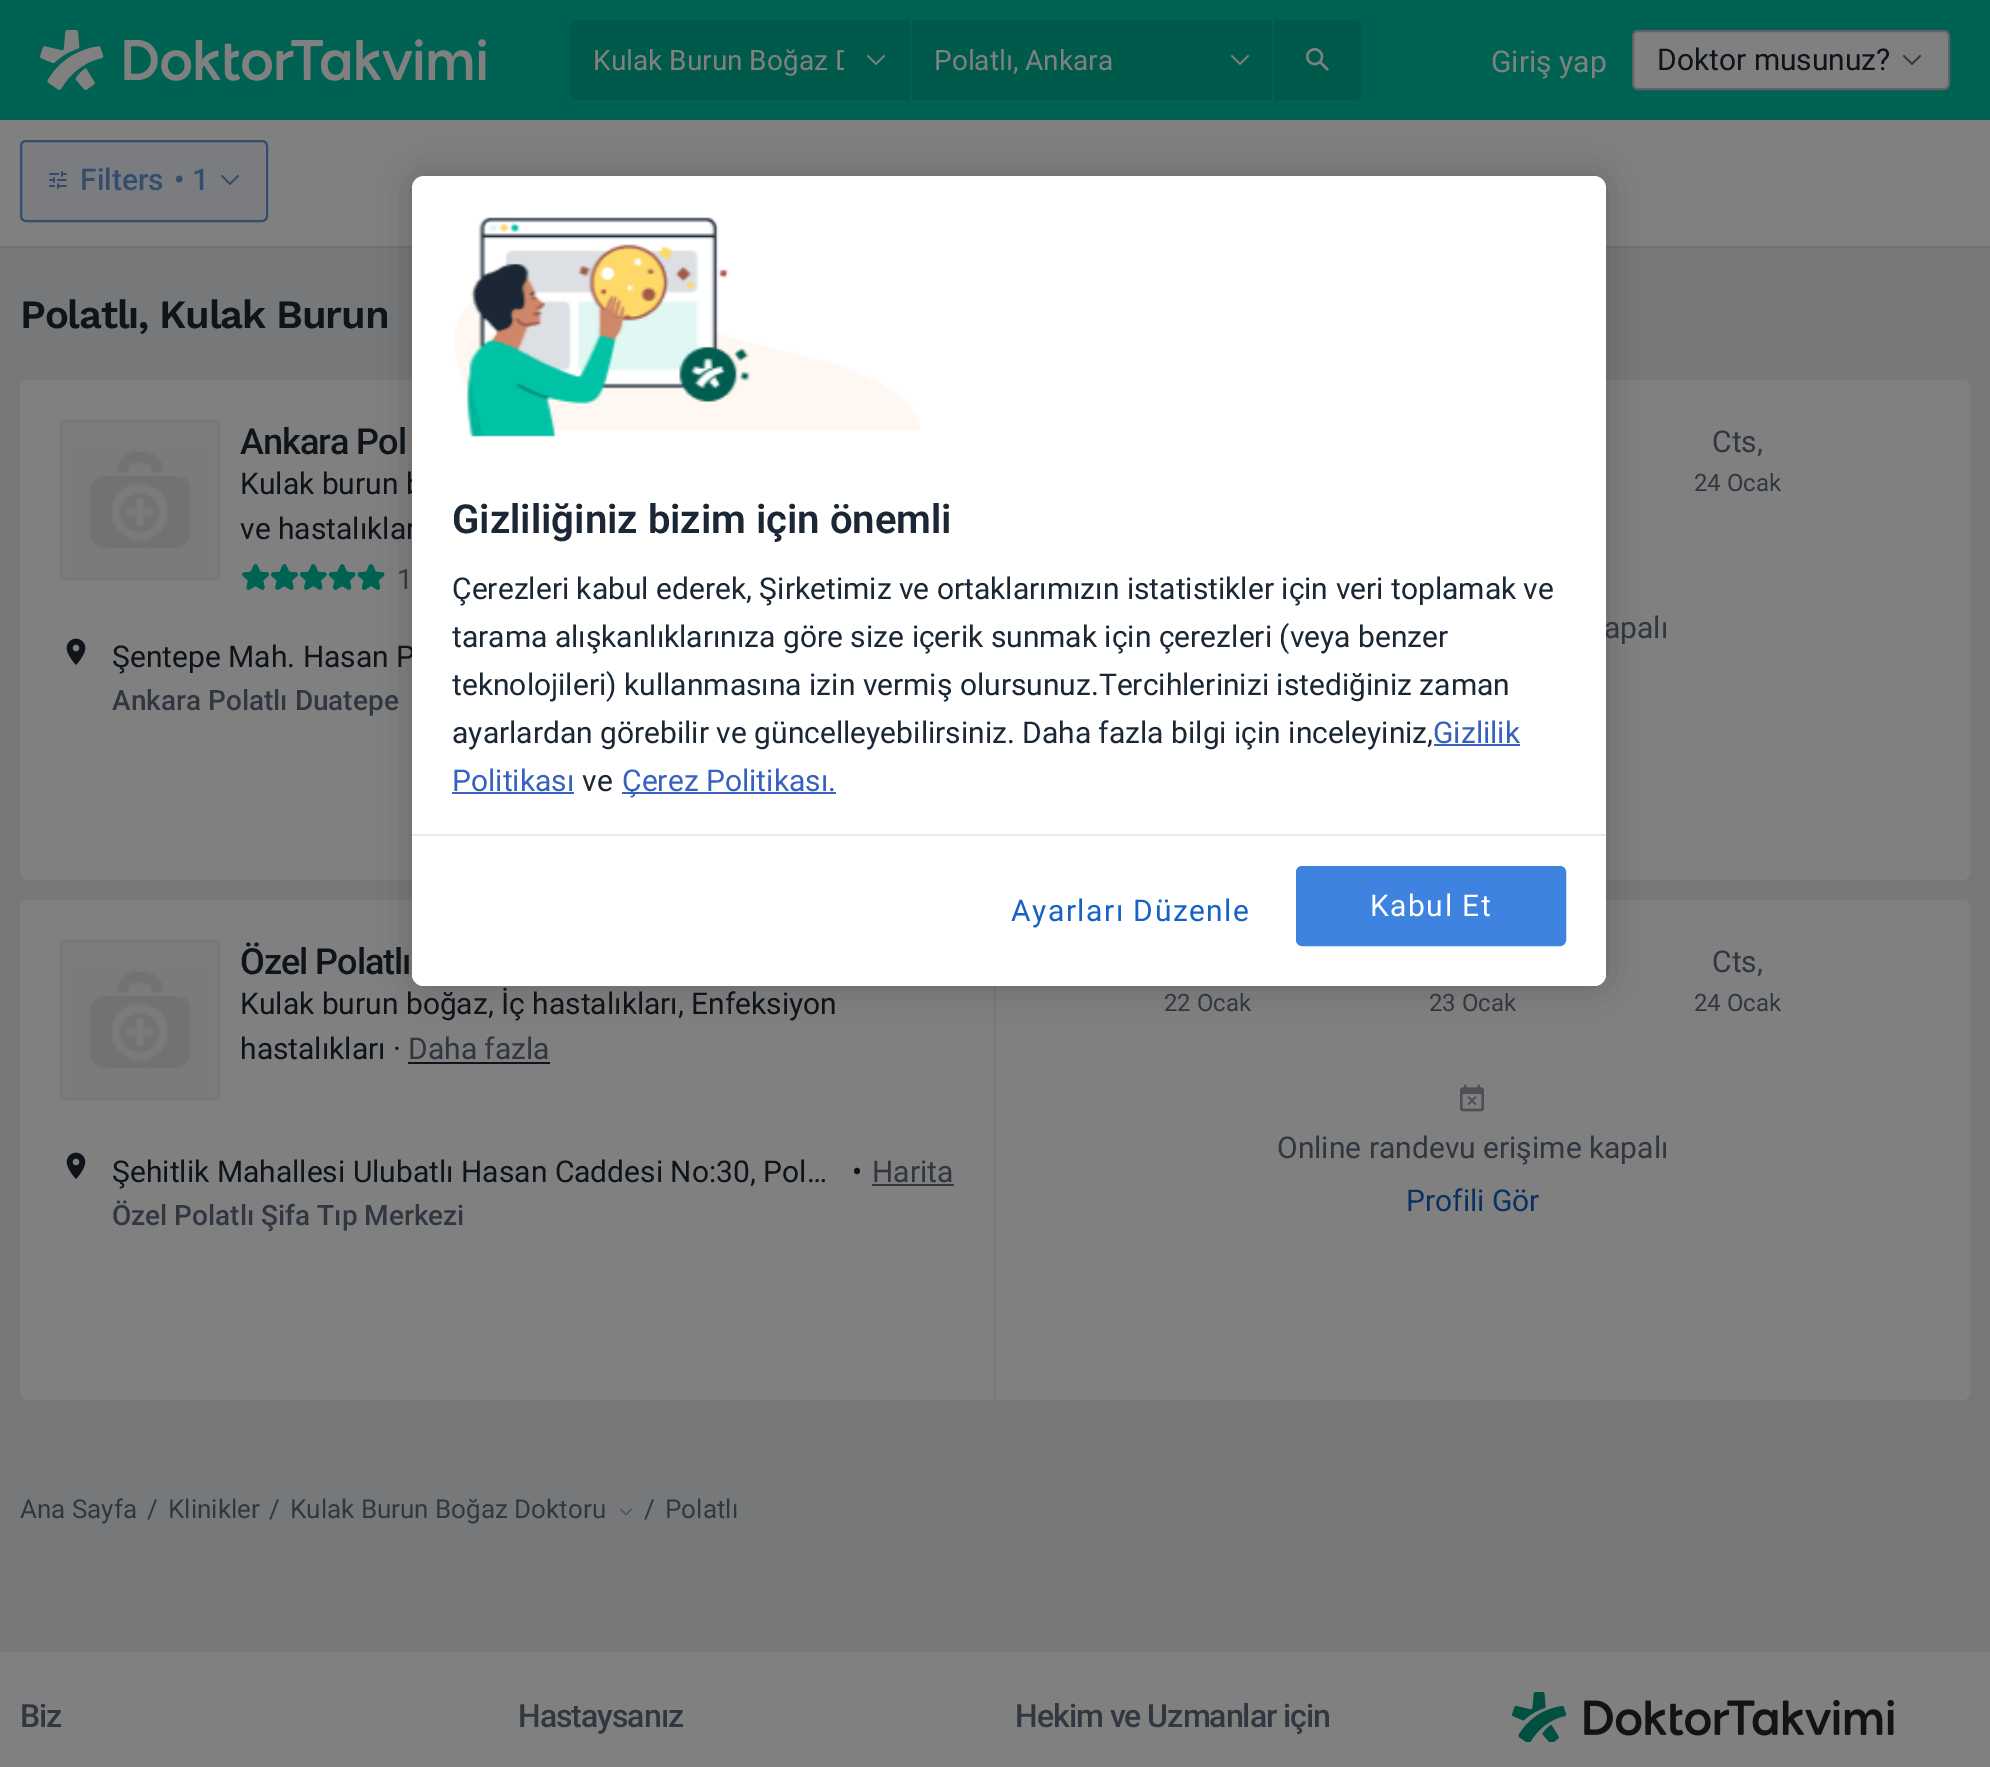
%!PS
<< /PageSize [1990 1767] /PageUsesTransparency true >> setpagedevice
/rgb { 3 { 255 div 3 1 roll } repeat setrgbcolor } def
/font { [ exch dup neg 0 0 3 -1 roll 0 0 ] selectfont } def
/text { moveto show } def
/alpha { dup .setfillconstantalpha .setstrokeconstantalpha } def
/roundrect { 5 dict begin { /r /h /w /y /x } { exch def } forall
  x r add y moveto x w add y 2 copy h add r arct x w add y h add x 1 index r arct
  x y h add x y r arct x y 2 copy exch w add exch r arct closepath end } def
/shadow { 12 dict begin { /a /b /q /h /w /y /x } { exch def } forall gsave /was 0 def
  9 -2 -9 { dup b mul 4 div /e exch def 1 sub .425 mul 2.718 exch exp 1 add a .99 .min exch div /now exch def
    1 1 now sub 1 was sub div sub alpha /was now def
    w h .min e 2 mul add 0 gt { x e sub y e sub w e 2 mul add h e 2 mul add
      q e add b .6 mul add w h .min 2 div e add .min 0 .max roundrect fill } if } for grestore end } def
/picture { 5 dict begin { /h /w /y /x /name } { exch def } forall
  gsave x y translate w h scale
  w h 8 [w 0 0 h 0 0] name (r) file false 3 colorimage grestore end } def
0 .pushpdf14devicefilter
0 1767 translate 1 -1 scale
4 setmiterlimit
119 120 121 rgb
0 0 1990 1767 rectfill
0 98 83 rgb
0 0 1990 120 rectfill
(img_01.rgb) 40 30 446 60 picture
0 90 76 rgb
578 20 moveto 332 0 rlineto 0 80 rlineto -332 0 rlineto -4.5 0 -8 -3.5 -8 -8 rcurveto 0 -64 rlineto 0 -4.5 3.5 -8 8 -8 rcurveto closepath fill
(img_02.rgb) 867 55 18 10 picture
912 20 360 80 rectfill
(img_02.rgb) 1231 55 18 10 picture
1274 20 moveto 82 0 rlineto 3.5 0 6 2.5 6 6 rcurveto 0 68 rlineto 0 3.5 -2.5 6 -6 6 rcurveto -82 0 rlineto closepath fill
(img_03.rgb) 1306 48 23 23 picture
128 128 128 rgb
1633 31 316 58 5 roundrect gsave fill grestore
95 98 102 rgb
2 setlinewidth
stroke
(img_04.rgb) 1903 55 18 10 picture
128 128 128 rgb
0 120 1990 126 rectfill
110 112 114 rgb
0 246 1990 2 rectfill
122 124 127 rgb
21 141 246 80 5 roundrect gsave fill grestore
52 77 109 rgb
stroke
(img_05.rgb) 49 171 18 18 picture
(img_06.rgb) 221 175 18 10 picture
128 128 128 rgb
20 380 1950 500 8 roundrect fill
(img_07.rgb) 60 420 160 160 picture
(img_08.rgb) 70 446 138 134 picture
0.05 alpha
0 0 0 rgb
61 421 158 158 rectstroke
1 alpha
(img_09.rgb) 242 564 143 26 picture
(img_10.rgb) 242 564 143 26 picture
(img_11.rgb) 66 638 20 27 picture
128 128 128 rgb
20 900 1950 500 8 roundrect fill
119 120 121 rgb
994 986 2 414 rectfill
(img_12.rgb) 60 940 160 160 picture
(img_08.rgb) 70 966 138 134 picture
0.05 alpha
0 0 0 rgb
61 941 158 158 rectstroke
1 alpha
14 20 26 rgb
408 1062 142 2 rectfill
(img_11.rgb) 66 1152 20 27 picture
48 55 64 rgb
872 1184 82 2 rectfill
(img_13.rgb) 1460 1084 24 28 picture
(img_14.rgb) 620 1508 12 8 picture
0 0 0 rgb
412 176 1194 810 12 18 0.2 shadow
128 128 128 rgb
0 1652 1990 115 rectfill
(img_16.rgb) 1512 1692 382 50 picture
gsave
594 44 250 32 rectclip
/Roboto-Regular 28 font
(Kulak Burun Boğaz D) 593 70 text
grestore
/Roboto-Regular 28 font
(Polatlı, Ankara) 934 70 text
/Roboto-Regular 30 font
(Giriş yap) 1491 72 text
14 20 26 rgb
(Doktor musunuz?) 1657 70 text
/Roboto-Medium 30 font
52 77 109 rgb
(Filters) 80 190 text
(• 1) 174 190 text
/WorkSans-SemiBold 40 font
14 20 26 rgb
20 328 moveto -1.2 0 (Polatlı, Kulak Burun) ashow
/Roboto-Medium 36 font
240 454 moveto -1 0 (Ankara Pol) ashow
/Roboto-Regular 30 font
(Kulak burun b) 240 494 text
(ve hastalıklar) 240 539 text
/Roboto-Regular 28 font
48 55 64 rgb
(1) 397 589 text
/Roboto-Regular 30 font
14 20 26 rgb
(Şentepe Mah. Hasan P) 112 667 text
/Roboto-Medium 28 font
48 55 64 rgb
(Ankara Polatlı Duatepe) 112 710 text
/Roboto-Regular 30 font
(Cts,) 1712 452 text
/Roboto-Regular 24 font
(24 Ocak) 1694 491 text
/Roboto-Regular 30 font
(apalı) 1604 638 text
/Roboto-Medium 36 font
14 20 26 rgb
240 974 moveto -1 0 (Özel Polatlı) ashow
/Roboto-Regular 30 font
(Kulak burun boğaz, İç hastalıkları, Enfeksiyon) 240 1014 text
(hastalıkları ·) 240 1059 text
48 55 64 rgb
(Daha fazla) 408 1059 text
14 20 26 rgb
(Şehitlik Mahallesi Ulubatlı Hasan Caddesi No:30, Pol…) 112 1182 text
(•) 852 1182 text
48 55 64 rgb
(Harita) 872 1182 text
/Roboto-Medium 28 font
(Özel Polatlı Şifa Tıp Merkezi) 112 1225 text
/Roboto-Regular 24 font
(22 Ocak) 1164 1011 text
(23 Ocak) 1429 1011 text
/Roboto-Regular 30 font
(Cts,) 1712 972 text
/Roboto-Regular 24 font
(24 Ocak) 1694 1011 text
/Roboto-Regular 30 font
(Online randevu erişime kapalı) 1277 1158 text
11 49 99 rgb
(Profili Gör) 1406 1211 text
/Roboto-Regular 26 font
48 55 64 rgb
(Ana Sayfa) 20 1518 text
(/) 147 1518 text
(Klinikler) 168 1518 text
(/) 269 1518 text
(Kulak Burun Boğaz Doktoru) 290 1518 text
(/) 644 1518 text
(Polatlı) 665 1518 text
255 255 255 rgb
412 176 1194 810 12 roundrect fill
(img_15.rgb) 454 217 466 220 picture
/Roboto-SemiBold 40 font
27 39 52 rgb
(Gizliliğiniz bizim için önemli) 452 533 text
/Roboto-Regular 30 font
(Çerezleri kabul ederek, Şirketimiz ve ortaklarımızın istatistikler için veri toplamak ve) 452 599 text
(tarama alışkanlıklarınıza göre size içerik sunmak için çerezleri \(veya benzer) 452 647 text
(teknolojileri\) kullanmasına izin vermiş olursunuz.Tercihlerinizi istediğiniz zaman) 452 695 text
(ayarlardan görebilir ve güncelleyebilirsiniz. Daha fazla bilgi için inceleyiniz,) 452 743 text
56 96 190 rgb
(Gizlilik) 1433 743 text
1434 744 86 2 rectfill
(Politikası) 452 791 text
452 792 122 2 rectfill
27 39 52 rgb
(ve) 582 791 text
56 96 190 rgb
622 792 214 2 rectfill
(Çerez Politikası.) 622 791 text
255 255 255 rgb
412 834 moveto 1194 0 rlineto 0 140 rlineto 0 6.5 -5.5 12 -12 12 rcurveto -1170 0 rlineto -6.5 0 -12 -5.5 -12 -12 rcurveto closepath fill
233 233 233 rgb
412 834 1194 2 rectfill
22 98 198 rgb
1011 921 moveto 1.5 0 (Ayarları Düzenle) ashow
61 131 223 rgb
1297 867 268 78 5 roundrect gsave fill grestore
stroke
255 255 255 rgb
1370 916 moveto 1.5 0 (Kabul Et) ashow
/Roboto-Medium 32 font
48 55 64 rgb
20 1727 moveto -1 0 (Biz) ashow
518 1727 moveto -1 0 (Hastaysanız) ashow
1015 1727 moveto -1 0 (Hekim ve Uzmanlar için) ashow
.poppdf14devicefilter showpage
